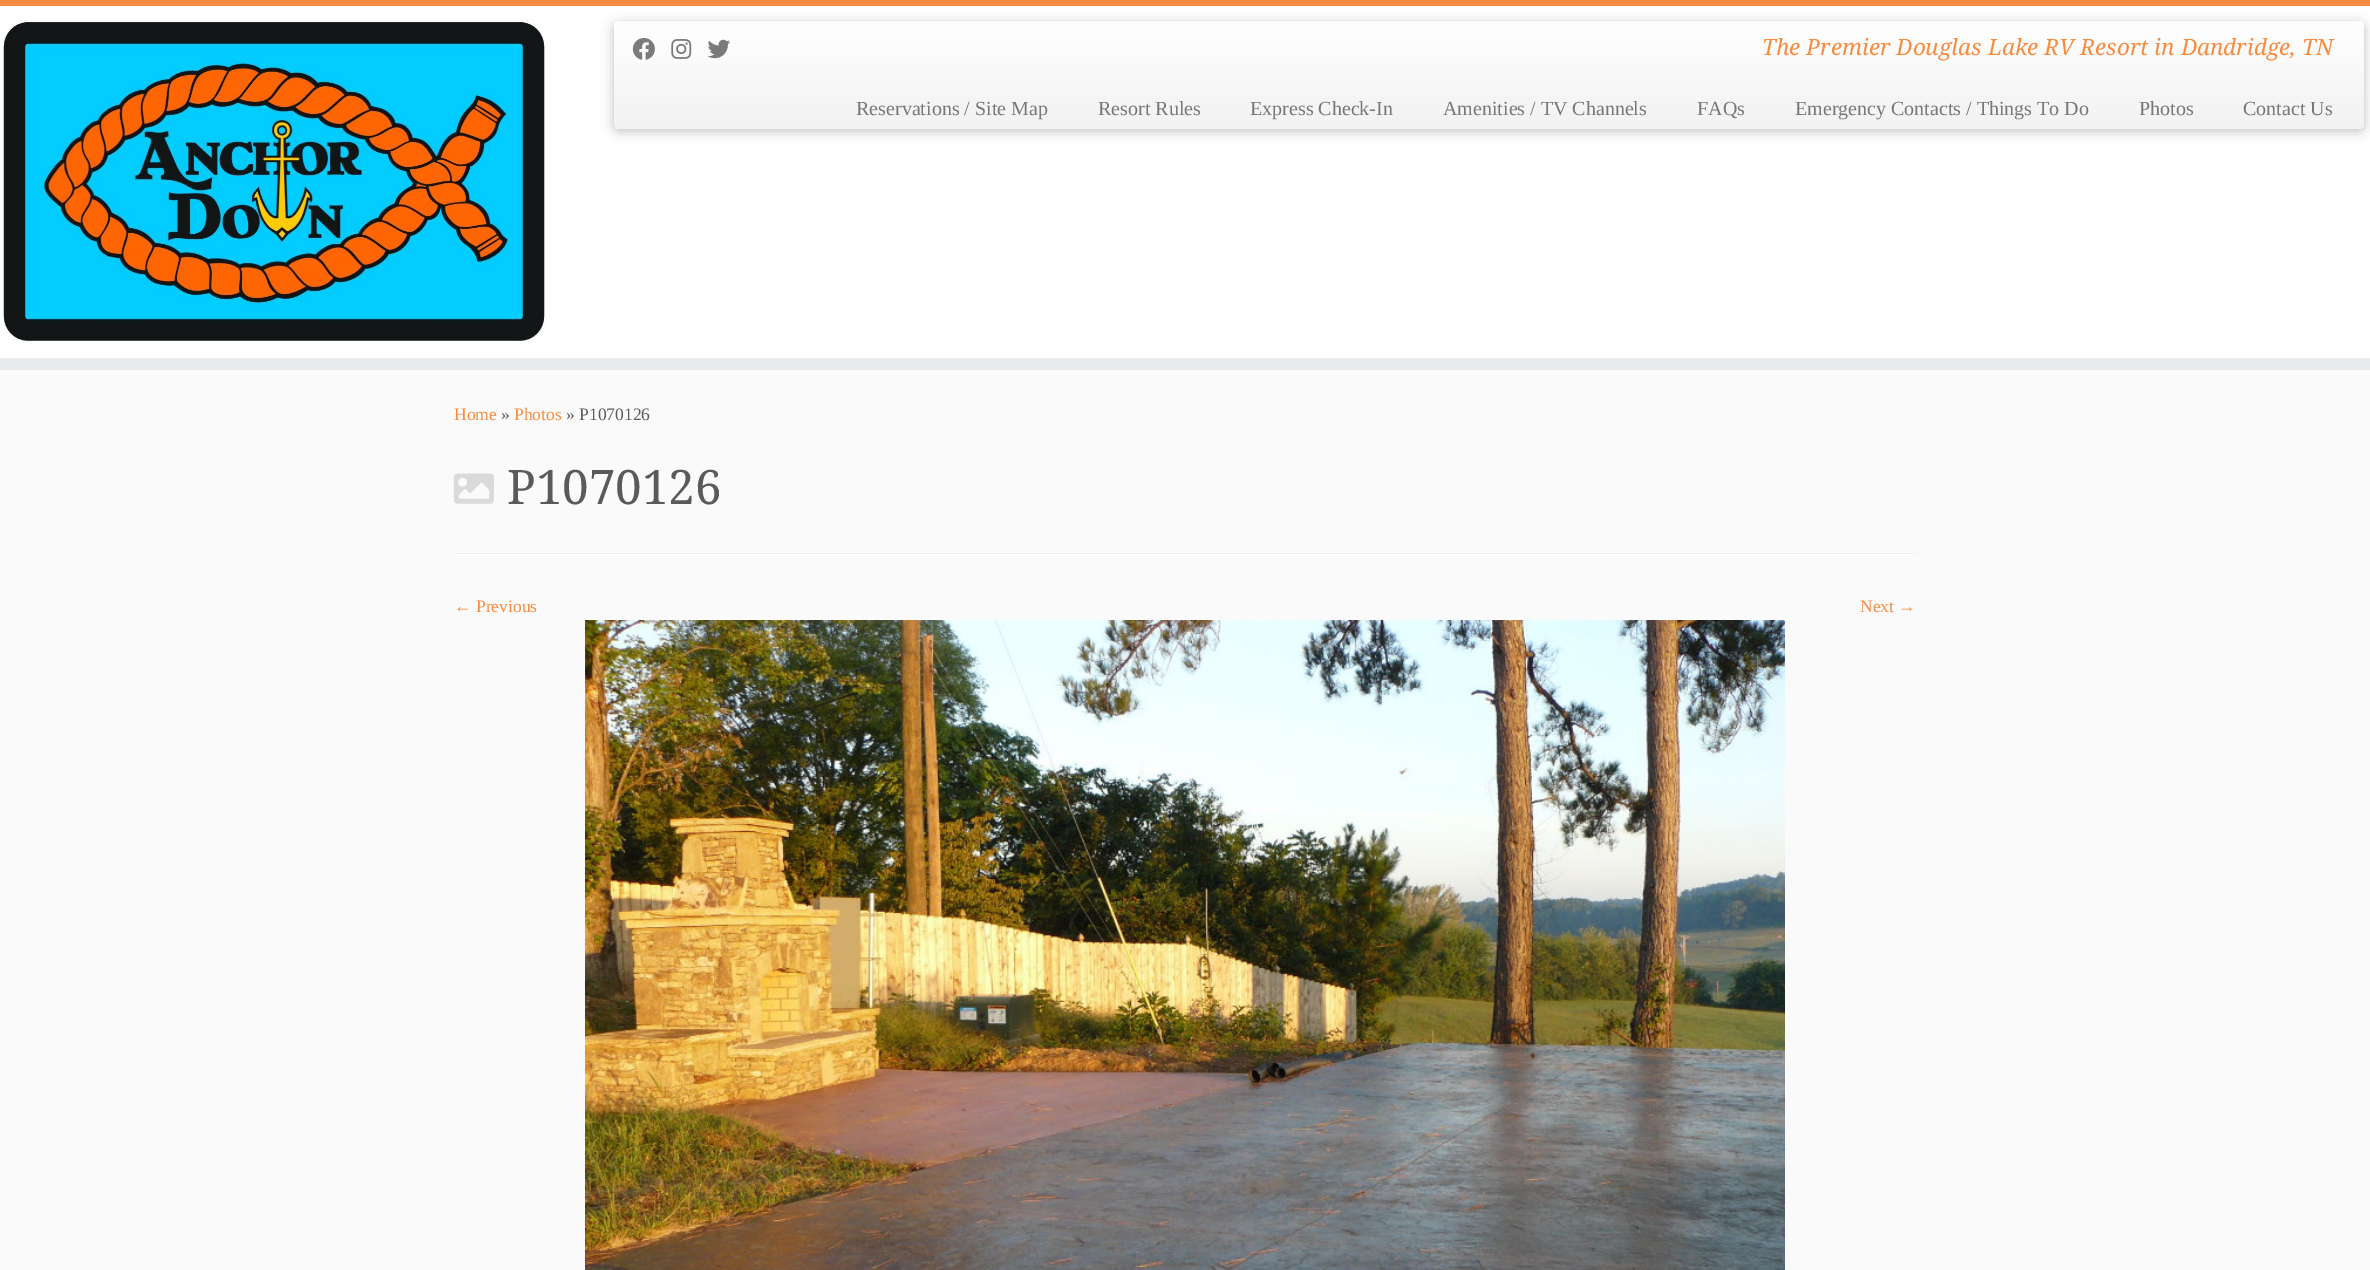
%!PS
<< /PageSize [2370 1270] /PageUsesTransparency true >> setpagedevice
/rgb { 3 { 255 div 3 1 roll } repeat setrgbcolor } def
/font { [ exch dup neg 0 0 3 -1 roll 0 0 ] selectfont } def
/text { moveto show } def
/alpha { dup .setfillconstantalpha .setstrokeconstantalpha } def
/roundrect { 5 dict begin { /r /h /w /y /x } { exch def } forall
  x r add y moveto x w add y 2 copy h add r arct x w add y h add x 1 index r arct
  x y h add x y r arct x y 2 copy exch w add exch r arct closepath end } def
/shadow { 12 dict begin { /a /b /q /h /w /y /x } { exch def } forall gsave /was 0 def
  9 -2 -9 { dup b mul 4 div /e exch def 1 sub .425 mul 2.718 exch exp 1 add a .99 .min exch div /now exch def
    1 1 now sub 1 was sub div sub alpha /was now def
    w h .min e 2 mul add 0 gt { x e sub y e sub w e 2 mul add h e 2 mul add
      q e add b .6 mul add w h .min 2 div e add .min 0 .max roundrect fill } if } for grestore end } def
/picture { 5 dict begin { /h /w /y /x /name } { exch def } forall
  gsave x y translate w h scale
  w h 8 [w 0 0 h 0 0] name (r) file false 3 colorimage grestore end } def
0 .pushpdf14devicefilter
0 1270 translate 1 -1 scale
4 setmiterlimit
250 250 250 rgb
0 0 2370 1270 rectfill
255 255 255 rgb
0 6 2370 352 rectfill
247 140 64 rgb
0 0 2370 6 rectfill
233 234 238 rgb
0 358 2370 12 rectfill
(img_01.rgb) 3 19 542 322 picture
0 0 0 rgb
614 24 1750 107 5 6 0.25 shadow
gsave 614 21 1750 108 5 roundrect clip newpath
<< /ShadingType 2 /ColorSpace /DeviceRGB /Coords [1489 21 1489 129] /Extend [true true] /Function << /FunctionType 2 /Domain [0 1] /C0 [1 1 1] /C1 [0.949 0.949 0.949] /N 1 >> >> shfill grestore
(img_02.rgb) 632 38 23 22 picture
(img_03.rgb) 671 39 21 20 picture
(img_04.rgb) 707 39 23 20 picture
(img_05.rgb) 453 473 41 31 picture
238 238 238 rgb
454 553 1462 1 rectfill
255 255 255 rgb
454 554 1462 1 rectfill
(img_06.rgb) 585 620 1200 650 picture
/NotoSerif-Italic 22.5 font
247 140 64 rgb
(The Premier Douglas Lake RV Resort in Dandridge, TN) 1762 55 text
/LiberationSerif-Regular 20 font
119 119 119 rgb
(Reservations / Site Map) 856 115 text
(Resort Rules) 1098 115 text
(Express Check-In) 1250 115 text
(Amenities / TV Channels) 1443 115 text
(FAQs) 1697 115 text
(Emergency Contacts / Things To Do) 1795 115 text
(Photos) 2139 115 text
(Contact Us) 2243 115 text
/LiberationSerif-Regular 17.5 font
247 140 64 rgb
(Home) 454 420 text
90 90 90 rgb
(») 501 420 text
247 140 64 rgb
(Photos) 514 420 text
90 90 90 rgb
(» P1070126) 566 420 text
/NotoSerif-Regular 47.5 font
(P1070126) 507 504 text
/LiberationSerif-Regular 17.5 font
247 140 64 rgb
(← Previous) 454 612 text
(Next →) 1860 612 text
.poppdf14devicefilter showpage
